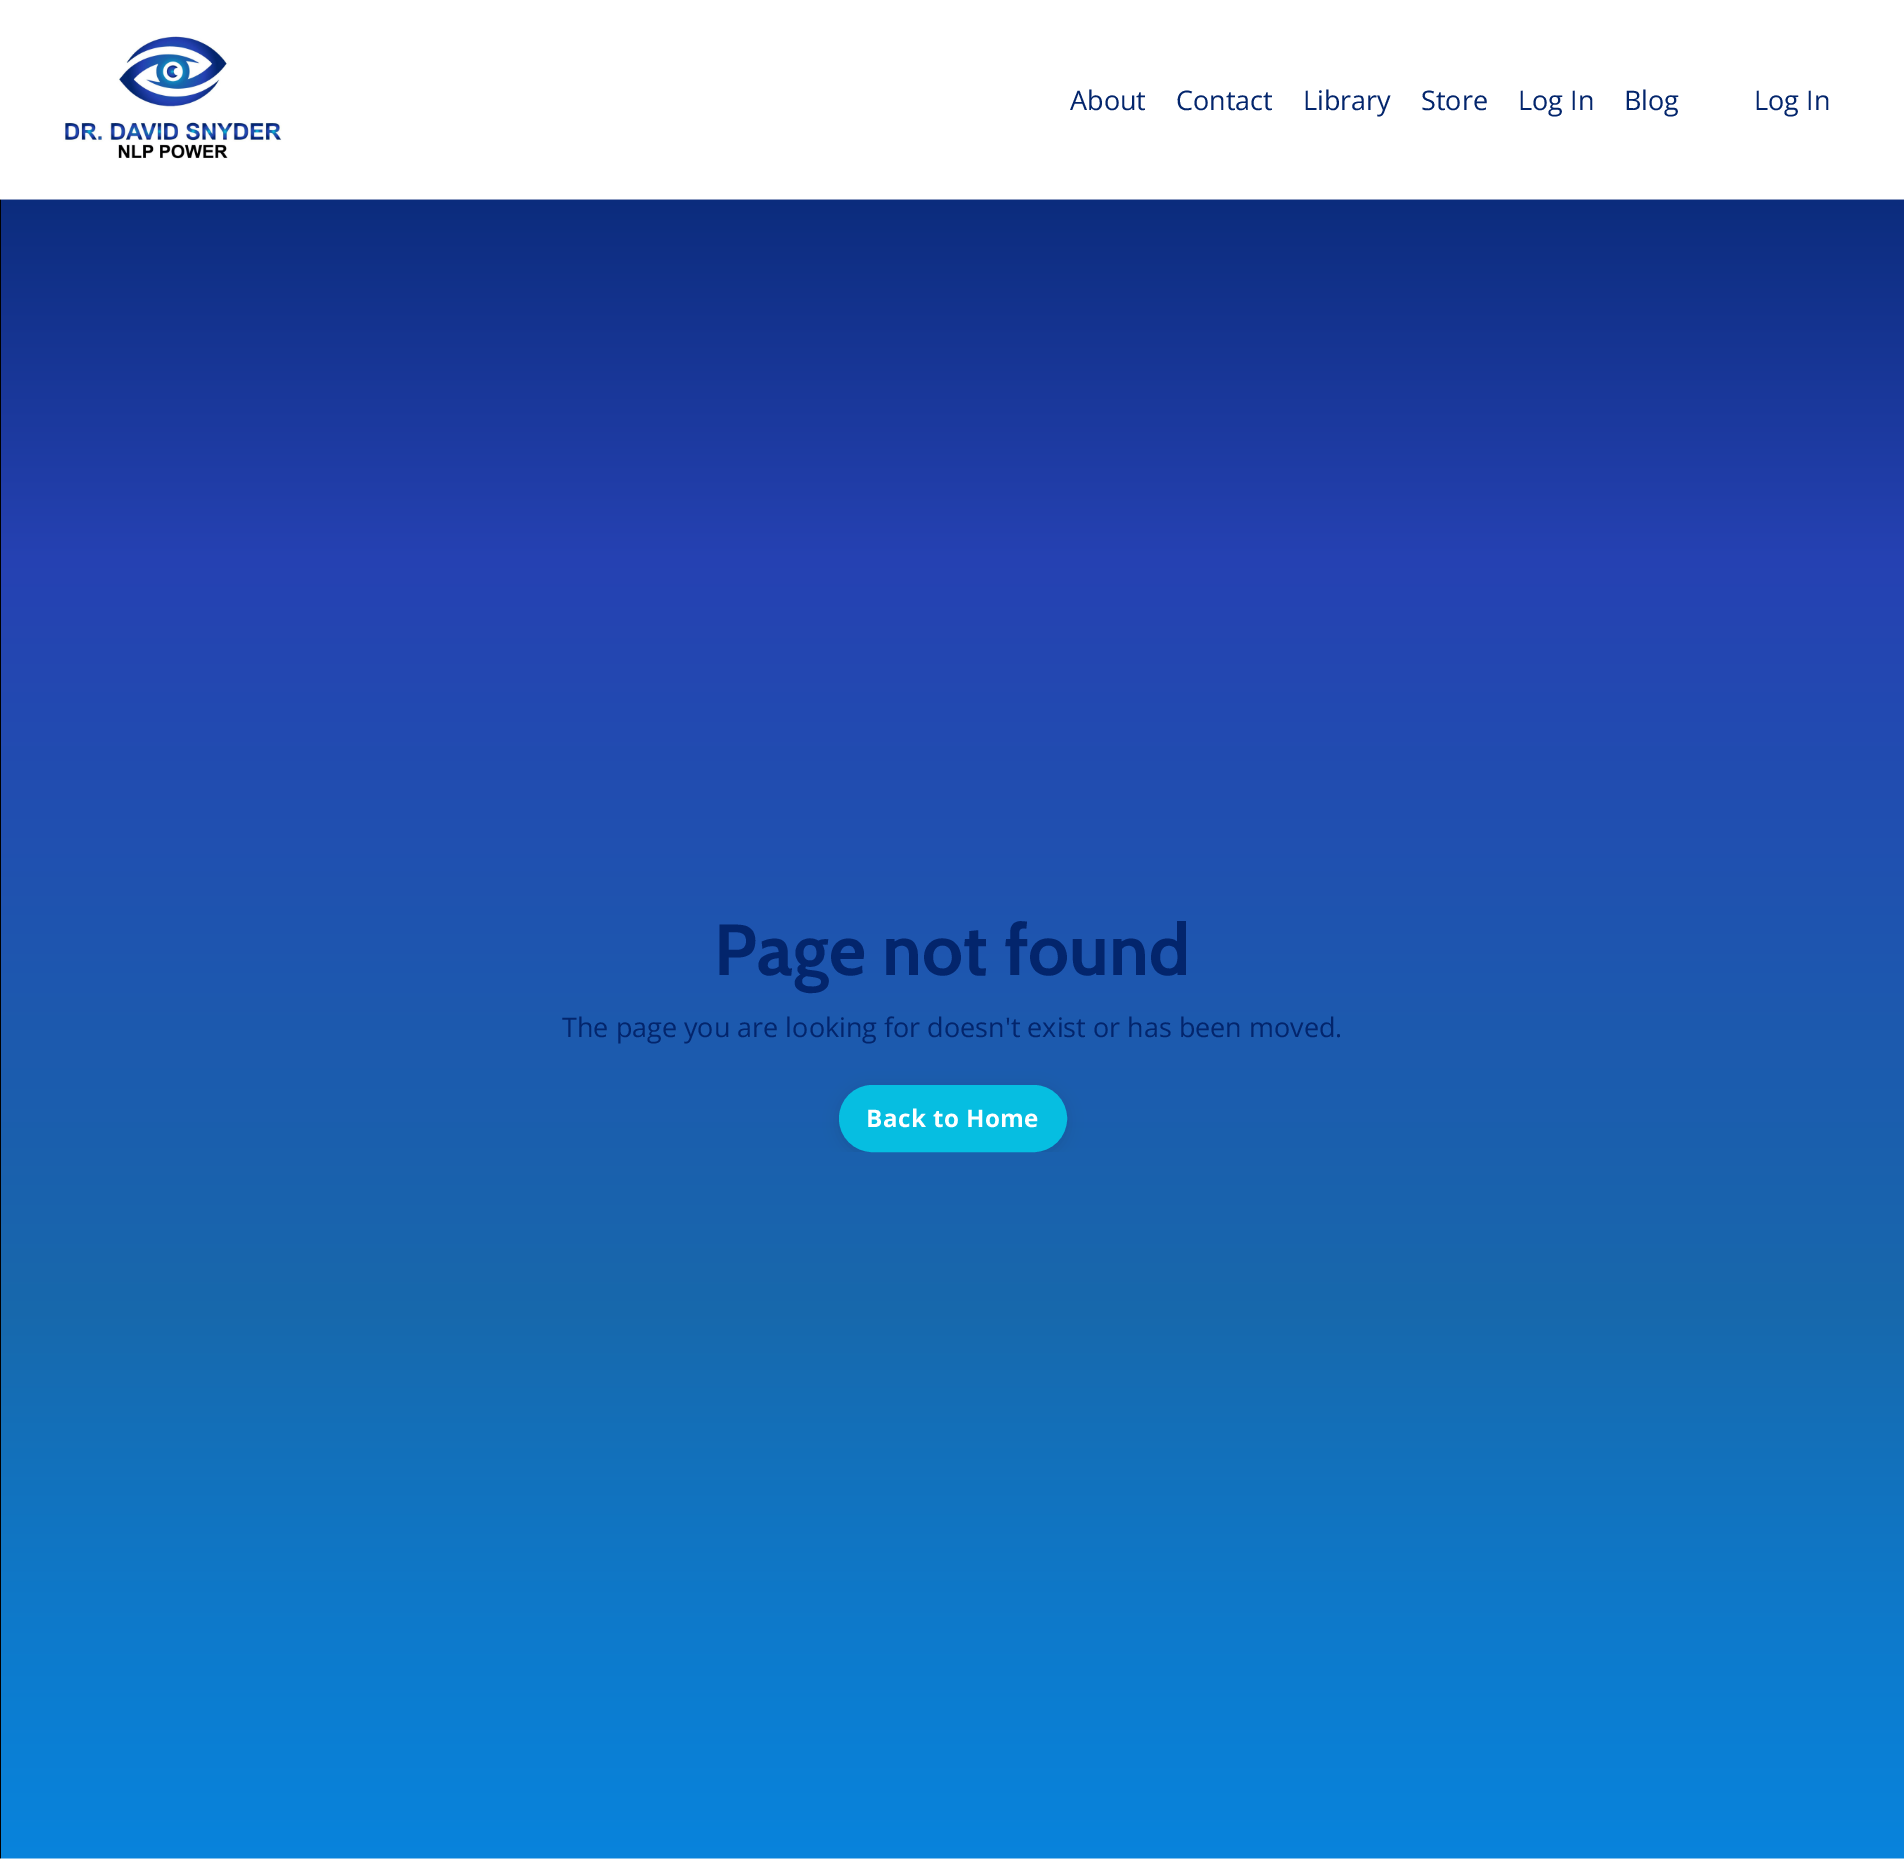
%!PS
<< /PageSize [1904 1860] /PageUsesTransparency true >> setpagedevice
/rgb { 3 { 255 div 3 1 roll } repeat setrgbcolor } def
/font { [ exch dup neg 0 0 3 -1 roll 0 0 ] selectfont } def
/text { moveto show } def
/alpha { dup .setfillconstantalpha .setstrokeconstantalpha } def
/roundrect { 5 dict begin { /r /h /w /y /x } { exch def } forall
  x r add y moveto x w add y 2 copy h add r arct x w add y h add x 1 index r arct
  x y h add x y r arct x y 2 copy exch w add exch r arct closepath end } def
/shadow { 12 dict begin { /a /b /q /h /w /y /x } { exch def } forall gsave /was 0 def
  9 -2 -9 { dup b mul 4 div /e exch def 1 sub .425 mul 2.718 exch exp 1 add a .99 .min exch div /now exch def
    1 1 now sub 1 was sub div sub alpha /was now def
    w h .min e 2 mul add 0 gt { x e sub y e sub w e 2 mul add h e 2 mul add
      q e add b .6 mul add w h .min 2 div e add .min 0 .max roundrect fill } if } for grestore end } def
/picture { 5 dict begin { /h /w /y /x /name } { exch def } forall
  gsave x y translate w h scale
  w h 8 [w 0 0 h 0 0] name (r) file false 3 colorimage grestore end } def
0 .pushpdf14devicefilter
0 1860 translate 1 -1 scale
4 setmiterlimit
255 255 255 rgb
0 0 1904 1860 rectfill
(img_02.rgb) 0 199 1904 1660 picture
0.07 alpha
0 199 1904 1 rectfill
1 alpha
(img_01.rgb) 63 36 219 123 picture
gsave
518 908 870 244 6 roundrect clip newpath
0 0 0 rgb
839 1088 228 67 33.5 7.5 0.1 shadow
grestore
6 190 225 rgb
840.5 1086.5 225 64 32 roundrect gsave fill grestore
3 setlinewidth
stroke
/OpenSans-Regular 27 font
3 37 108 rgb
(About) 1070 110 text
(Contact) 1176 110 text
(Library) 1303 110 text
(Store) 1421 110 text
(Log In) 1518 110 text
(Blog) 1624 110 text
(Log In) 1754 110 text
/Cabin-Bold 72 font
(Page not found) 714 975 text
/OpenSans-Regular 27 font
(The page you are looking for doesn't exist or has been moved.) 562 1037 text
/OpenSans-Bold 24.25 font
255 255 255 rgb
866 1127 moveto 0.4 0 (Back to Home) ashow
.poppdf14devicefilter showpage
